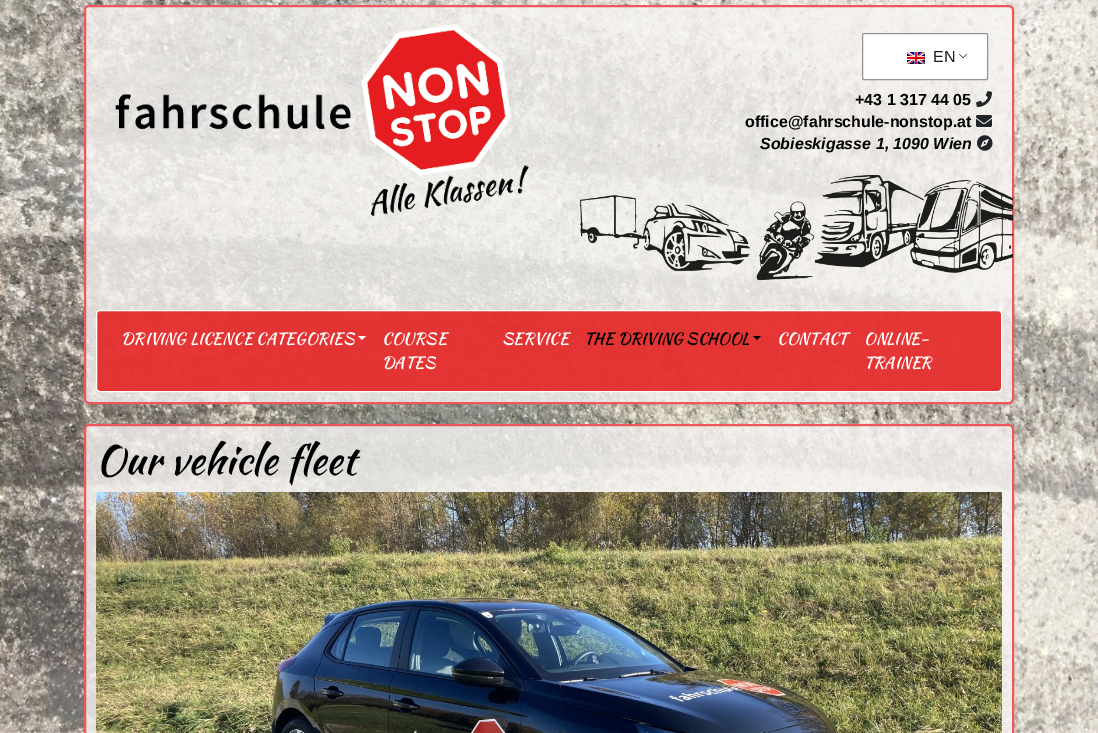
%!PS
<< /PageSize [1098 733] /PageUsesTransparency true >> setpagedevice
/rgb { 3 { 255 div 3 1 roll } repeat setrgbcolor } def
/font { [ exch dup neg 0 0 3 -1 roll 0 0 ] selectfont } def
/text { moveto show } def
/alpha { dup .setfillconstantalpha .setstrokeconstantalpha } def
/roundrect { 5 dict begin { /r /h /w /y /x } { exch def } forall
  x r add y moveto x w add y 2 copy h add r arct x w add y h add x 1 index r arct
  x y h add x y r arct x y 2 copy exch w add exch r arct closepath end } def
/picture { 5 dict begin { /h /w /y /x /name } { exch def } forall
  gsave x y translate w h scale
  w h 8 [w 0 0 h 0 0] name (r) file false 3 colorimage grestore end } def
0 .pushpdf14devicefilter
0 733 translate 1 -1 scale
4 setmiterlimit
255 255 255 rgb
0 0 1098 733 rectfill
(img_01.rgb) 0 0 1098 733 picture
0.8 alpha
246 244 242 rgb
85 6 928 397 4 roundrect fill
1 alpha
237 87 93 rgb
2 setlinewidth
85 6 928 397 4 roundrect stroke
(img_02.rgb) 115 24 414 192 picture
255 255 255 rgb
862 33 126 47 2 roundrect fill
(img_03.rgb) 959 53 8 5 picture
148 148 148 rgb
1 setlinewidth
862.5 33.5 125 46 1.5 roundrect stroke
(img_04.rgb) 907 52 18 12 picture
(img_05.rgb) 976 91 16 16 picture
(img_06.rgb) 976 115 16 12 picture
(img_07.rgb) 977 135 16 16 picture
(img_08.rgb) 580 175 433 105 picture
0.8 alpha
228 10 10 rgb
96.5 310.5 905 81 3.5 roundrect fill
1 alpha
255 255 255 rgb
96.5 310.5 905 81 3.5 roundrect stroke
358 336 moveto 8 0 rlineto -4 4 rlineto closepath fill
0 0 0 rgb
753 336 moveto 8 0 rlineto -4 4 rlineto closepath fill
0.8 alpha
246 244 242 rgb
85 425 928 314 4 roundrect fill
1 alpha
237 87 93 rgb
2 setlinewidth
85 425 928 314 4 roundrect stroke
(img_09.rgb) 96 492 906 241 picture
/LiberationSans-Regular 16 font
30 30 30 rgb
(EN) 933 62 text
/LiberationSans-Bold 16 font
0 0 0 rgb
(+43 1 317 44 05) 855 105 text
(office@fahrschule-nonstop.at) 745 127 text
/LiberationSans-BoldItalic 16 font
(Sobieskigasse 1, 1090 Wien) 760 149 text
/KaushanScript-Regular 16 font
255 255 255 rgb
(DRIVING LICENCE CATEGORIES) 121 344 text
(COURSE) 382 344 text
(DATES) 382 368 text
(SERVICE) 502 344 text
0 0 0 rgb
(THE DRIVING SCHOOL) 584 344 text
255 255 255 rgb
(CONTACT) 777 344 text
(ONLINE-) 864 344 text
(TRAINER) 864 368 text
/KaushanScript-Regular 40 font
0 0 0 rgb
(Our vehicle fleet) 96 474 text
.poppdf14devicefilter showpage
